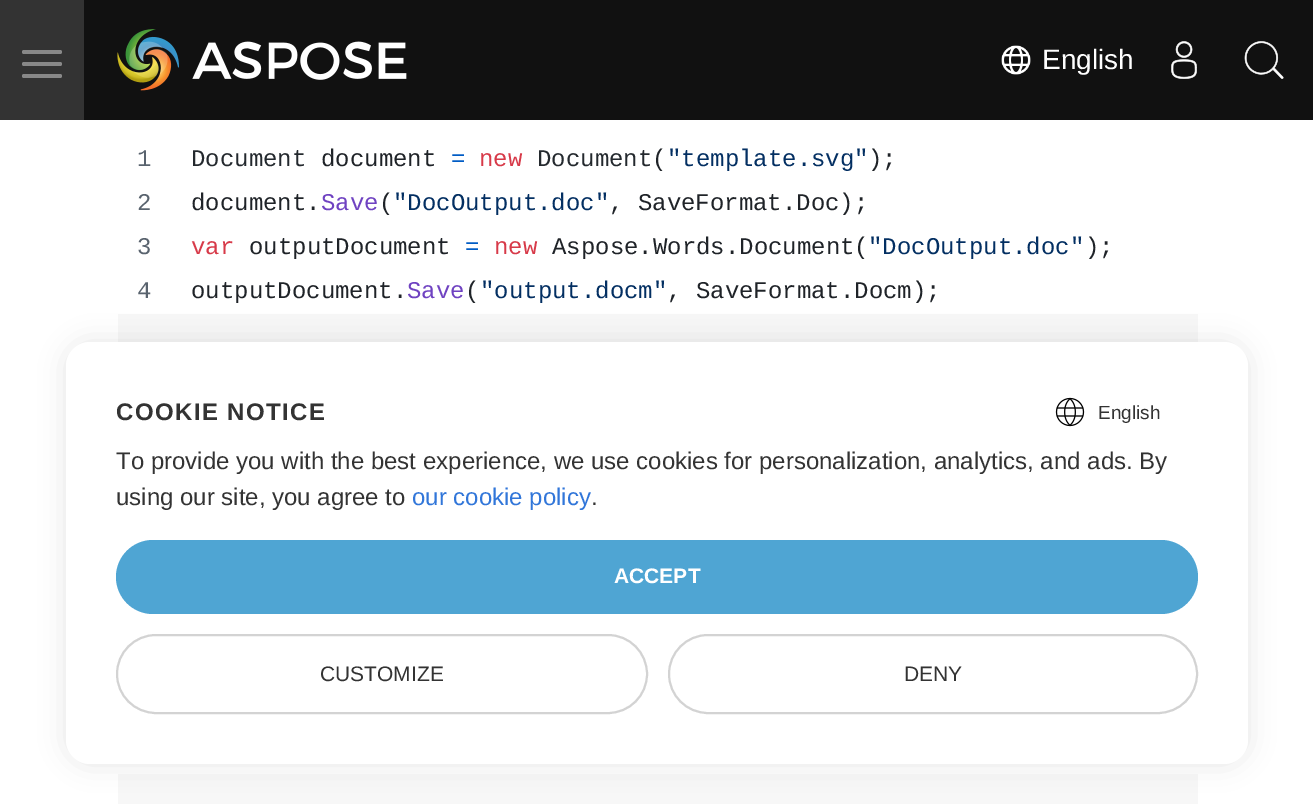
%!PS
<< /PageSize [1313 804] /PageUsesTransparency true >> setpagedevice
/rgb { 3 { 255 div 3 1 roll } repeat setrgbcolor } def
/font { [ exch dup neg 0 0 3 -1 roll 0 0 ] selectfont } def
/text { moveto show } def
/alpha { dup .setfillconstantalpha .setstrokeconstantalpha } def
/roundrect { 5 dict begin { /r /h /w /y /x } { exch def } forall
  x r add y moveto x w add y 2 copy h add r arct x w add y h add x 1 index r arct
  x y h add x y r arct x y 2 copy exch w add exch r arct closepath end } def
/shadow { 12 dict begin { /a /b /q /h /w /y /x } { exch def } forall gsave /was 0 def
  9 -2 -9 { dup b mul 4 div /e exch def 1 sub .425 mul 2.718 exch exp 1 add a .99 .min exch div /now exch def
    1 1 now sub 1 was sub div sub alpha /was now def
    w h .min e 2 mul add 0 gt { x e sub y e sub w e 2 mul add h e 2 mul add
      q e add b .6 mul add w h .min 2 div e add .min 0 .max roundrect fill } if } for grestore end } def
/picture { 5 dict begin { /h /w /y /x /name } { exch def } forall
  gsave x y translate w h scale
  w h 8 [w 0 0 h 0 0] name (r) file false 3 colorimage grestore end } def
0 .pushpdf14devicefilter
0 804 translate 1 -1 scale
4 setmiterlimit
255 255 255 rgb
0 0 1313 804 rectfill
17 17 17 rgb
84 0 1229 120 rectfill
51 51 51 rgb
0 0 84 120 rectfill
136 136 136 rgb
22 50 40 4 2 roundrect fill
22 62 40 4 2 roundrect fill
22 74 40 4 2 roundrect fill
(img_01.rgb) 117 29 290 62 picture
(img_02.rgb) 1001 45 30 30 picture
(img_03.rgb) 1171 41 26 38 picture
(img_04.rgb) 1244 41 40 38 picture
247 247 247 rgb
118 314 1080 28 rectfill
118 774 1080 30 rectfill
0 0 0 rgb
66 342 1182 422 24 13 0.1 shadow
255 255 255 rgb
66 342 1182 422 24 roundrect fill
(img_05.rgb) 1055 397 30 30 picture
79 165 211 rgb
116 540 1082 74 37 roundrect fill
211 211 211 rgb
2 setlinewidth
117 635 530 78 39 roundrect stroke
669 635 528 78 39 roundrect stroke
/LiberationSans-Regular 28 font
255 255 255 rgb
(English) 1042 69 text
/LiberationMono-Regular 24 font
89 99 110 rgb
(1) 137 166 text
36 41 46 rgb
(Document) 191 166 text
31 35 40 rgb
(document) 321 166 text
0 92 197 rgb
(=) 451 166 text
215 58 73 rgb
(new) 479 166 text
36 41 46 rgb
(Document) 537 166 text
31 35 40 rgb
(\() 652 166 text
3 47 98 rgb
("template.svg") 667 166 text
31 35 40 rgb
(\);) 868 166 text
89 99 110 rgb
(2) 137 210 text
31 35 40 rgb
(document.) 191 210 text
111 66 193 rgb
(Save) 321 210 text
31 35 40 rgb
(\() 379 210 text
3 47 98 rgb
("DocOutput.doc") 393 210 text
31 35 40 rgb
(, SaveFormat.Doc\);) 609 210 text
89 99 110 rgb
(3) 137 254 text
215 58 73 rgb
(var) 191 254 text
31 35 40 rgb
(outputDocument) 249 254 text
0 92 197 rgb
(=) 465 254 text
215 58 73 rgb
(new) 494 254 text
31 35 40 rgb
(Aspose.Words.Document\() 552 254 text
3 47 98 rgb
("DocOutput.doc") 868 254 text
31 35 40 rgb
(\);) 1085 254 text
89 99 110 rgb
(4) 137 298 text
31 35 40 rgb
(outputDocument.) 191 298 text
111 66 193 rgb
(Save) 407 298 text
31 35 40 rgb
(\() 465 298 text
3 47 98 rgb
("output.docm") 480 298 text
31 35 40 rgb
(, SaveFormat.Docm\);) 667 298 text
/LiberationSans-Bold 24 font
51 51 51 rgb
116 420 moveto 1.4 0 (COOKIE NOTICE) ashow
/LiberationSans-Regular 19 font
(English) 1098 419 text
/LiberationSans-Regular 24 font
(To provide you with the best experience, we use cookies for personalization, analytics, and ads. By) 116 469 text
(using our site, you agree to) 116 505 text
49 118 217 rgb
(our cookie policy) 412 505 text
51 51 51 rgb
(.) 591 505 text
/LiberationSans-Bold 21 font
255 255 255 rgb
(ACCEPT) 614 583 text
/LiberationSans-Regular 21 font
51 51 51 rgb
(CUSTOMIZE) 320 681 text
(DENY) 904 681 text
.poppdf14devicefilter showpage
